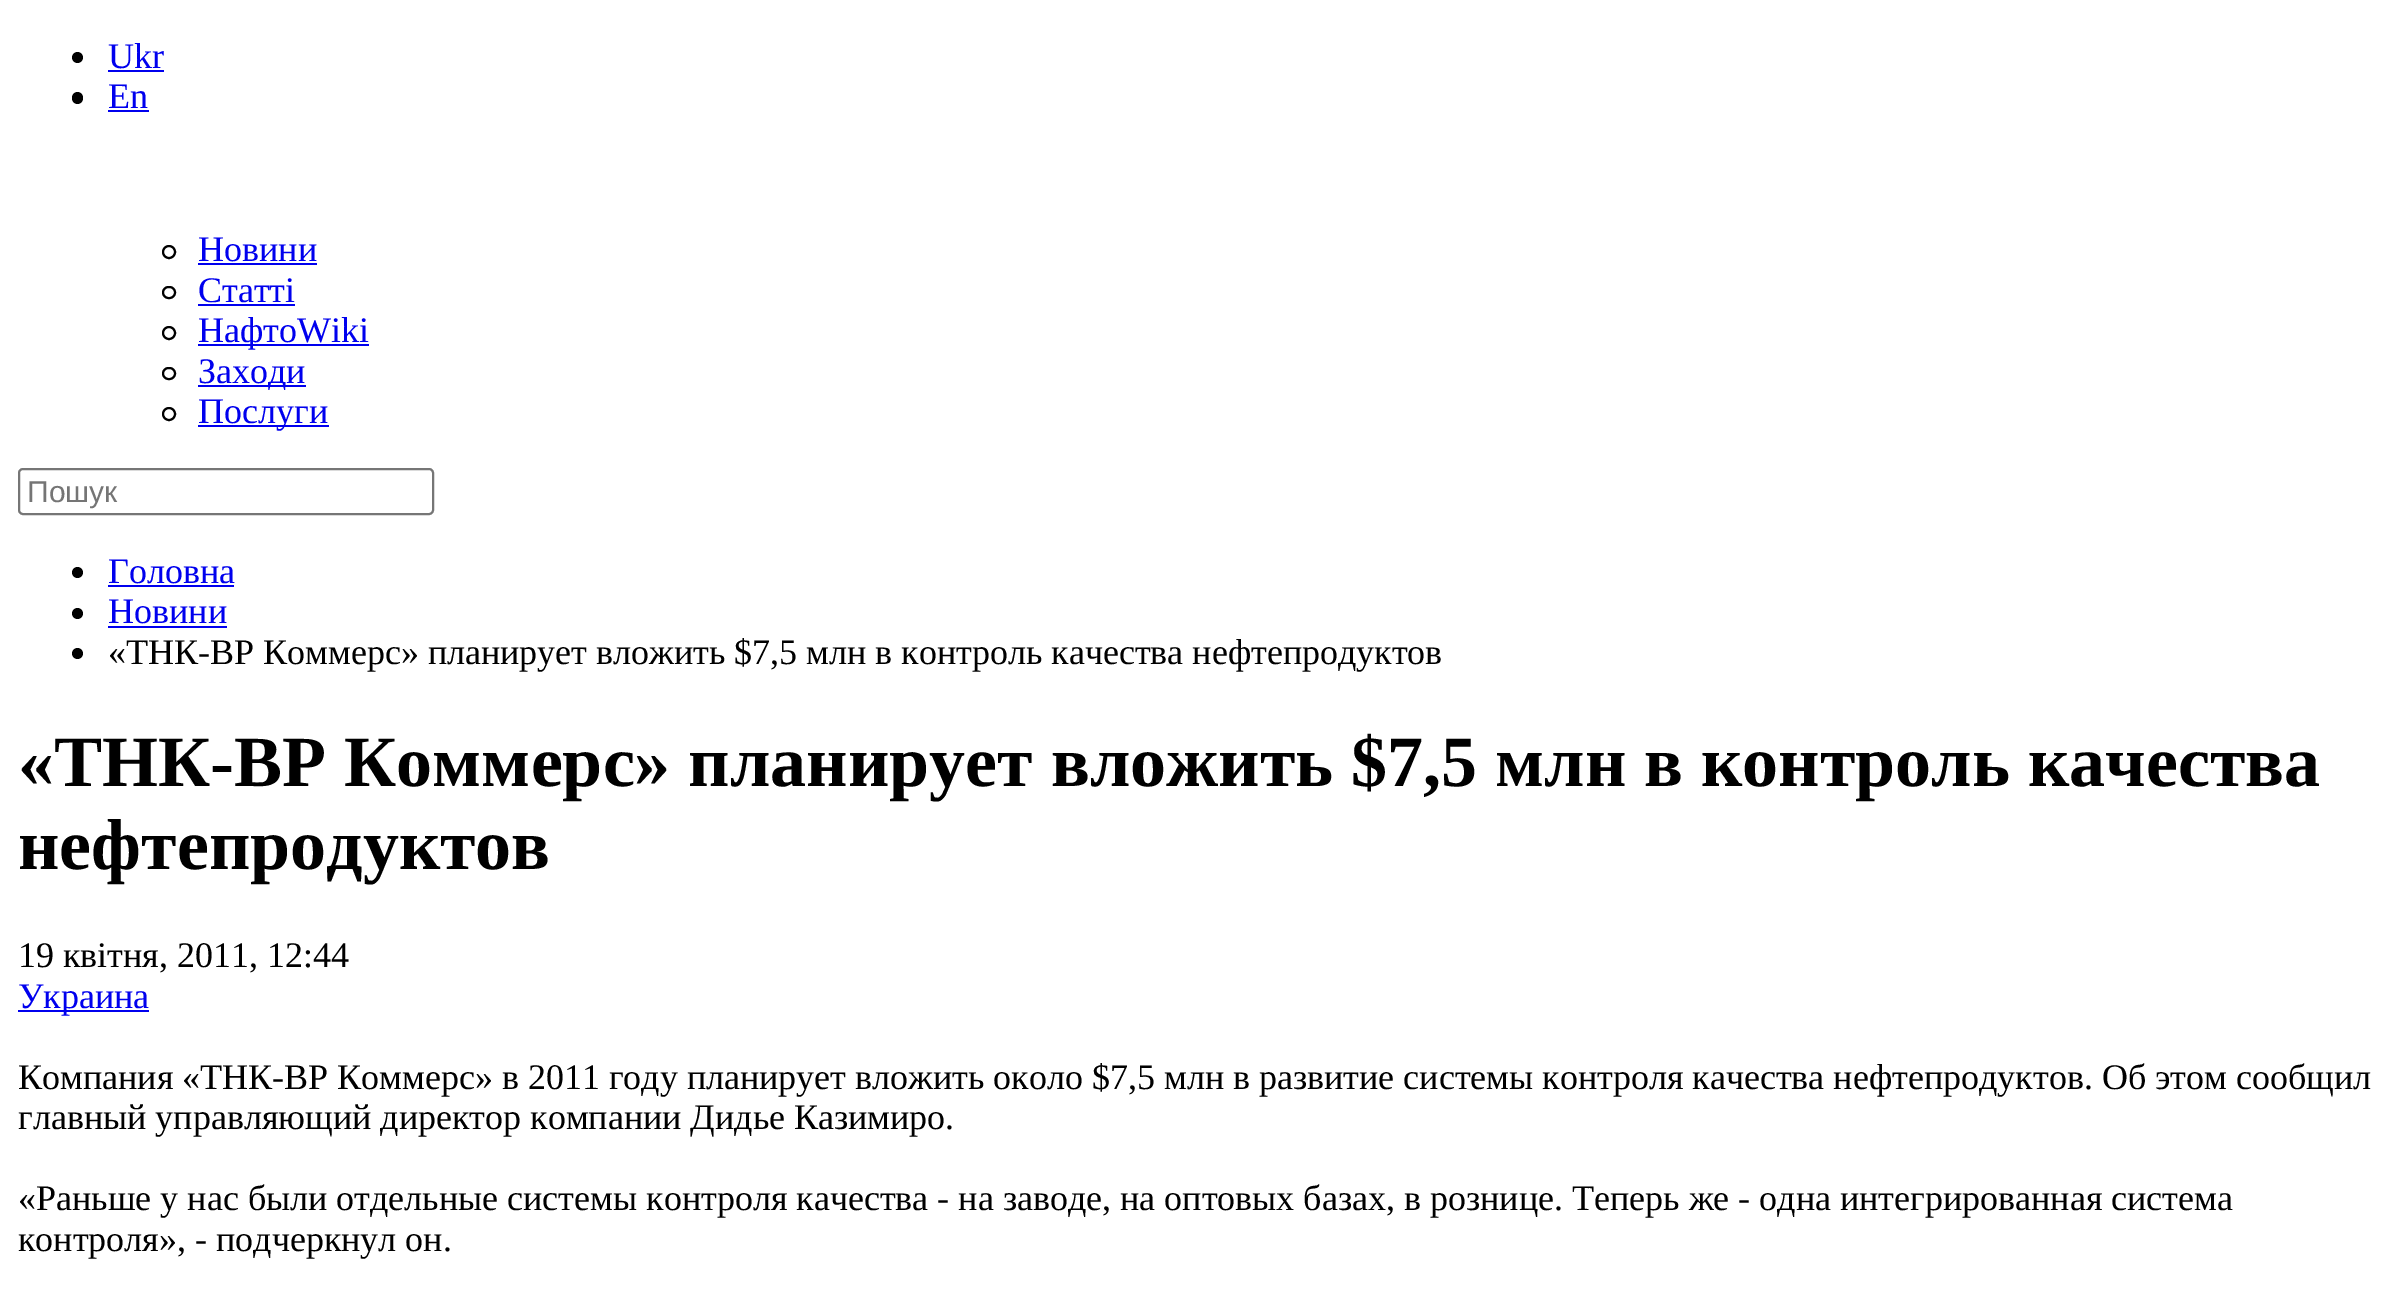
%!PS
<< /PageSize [2404 1293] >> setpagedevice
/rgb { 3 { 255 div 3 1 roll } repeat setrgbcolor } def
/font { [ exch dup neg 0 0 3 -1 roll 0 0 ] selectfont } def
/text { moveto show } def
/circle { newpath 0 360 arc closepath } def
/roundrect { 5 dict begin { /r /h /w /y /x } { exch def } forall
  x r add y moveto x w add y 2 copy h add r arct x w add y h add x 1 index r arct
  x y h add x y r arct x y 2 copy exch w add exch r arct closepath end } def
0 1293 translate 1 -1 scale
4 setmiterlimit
255 255 255 rgb
0 0 2404 1293 rectfill
0 0 0 rgb
77.5 57.5 5.5 circle fill
0 0 238 rgb
108 70 56 2 rectfill
0 0 0 rgb
72 92 11 12 5.5 roundrect fill
0 0 238 rgb
108 110 41 2 rectfill
0 0 0 rgb
2 setlinewidth
169 252 6 circle stroke
0 0 238 rgb
198 263 119 2 rectfill
0 0 0 rgb
163 287 12 11 5.5 roundrect stroke
0 0 238 rgb
198 304 97 2 rectfill
0 0 0 rgb
169 333 6 circle stroke
0 0 238 rgb
198 344 171 2 rectfill
0 0 0 rgb
163 368 12 11 5.5 roundrect stroke
0 0 238 rgb
198 385 108 2 rectfill
0 0 0 rgb
169 414 6 circle stroke
0 0 238 rgb
198 425 131 2 rectfill
118 118 118 rgb
19 469 414 45 4 roundrect stroke
0 0 0 rgb
77.5 572.5 5.5 circle fill
0 0 238 rgb
108 585 126 2 rectfill
0 0 0 rgb
77.5 613.5 5.5 circle fill
0 0 238 rgb
108 626 119 2 rectfill
0 0 0 rgb
77.5 653.5 5.5 circle fill
0 0 238 rgb
18 1010 131 2 rectfill
/LiberationSerif-Regular 36 font
(Ukr) 108 68 text
(En) 108 108 text
(Новини) 198 261 text
(Статті) 198 302 text
(НафтоWiki) 198 342 text
(Заходи) 198 383 text
(Послуги) 198 423 text
/LiberationSans-Regular 30 font
117 117 117 rgb
(Пошук) 27 502 text
/LiberationSerif-Regular 36 font
0 0 238 rgb
(Головна) 108 583 text
(Новини) 108 623 text
0 0 0 rgb
(«ТНК-ВР Коммерс» планирует вложить $7,5 млн в контроль качества нефтепродуктов) 108 664 text
/LiberationSerif-Bold 72 font
(«ТНК-ВР Коммерс» планирует вложить $7,5 млн в контроль качества) 18 786 text
(нефтепродуктов) 18 869 text
/LiberationSerif-Regular 36 font
(19 квітня, 2011, 12:44) 18 967 text
0 0 238 rgb
(Украина) 18 1008 text
0 0 0 rgb
(Компания «ТНК-ВР Коммерс» в 2011 году планирует вложить около $7,5 млн в развитие системы контроля качества нефтепродуктов. Об этом сообщил) 18 1089 text
(главный управляющий директор компании Дидье Казимиро.) 18 1129 text
(«Раньше у нас были отдельные системы контроля качества - на заводе, на оптовых базах, в рознице. Теперь же - одна интегрированная система) 18 1210 text
(контроля», - подчеркнул он.) 18 1251 text
showpage
